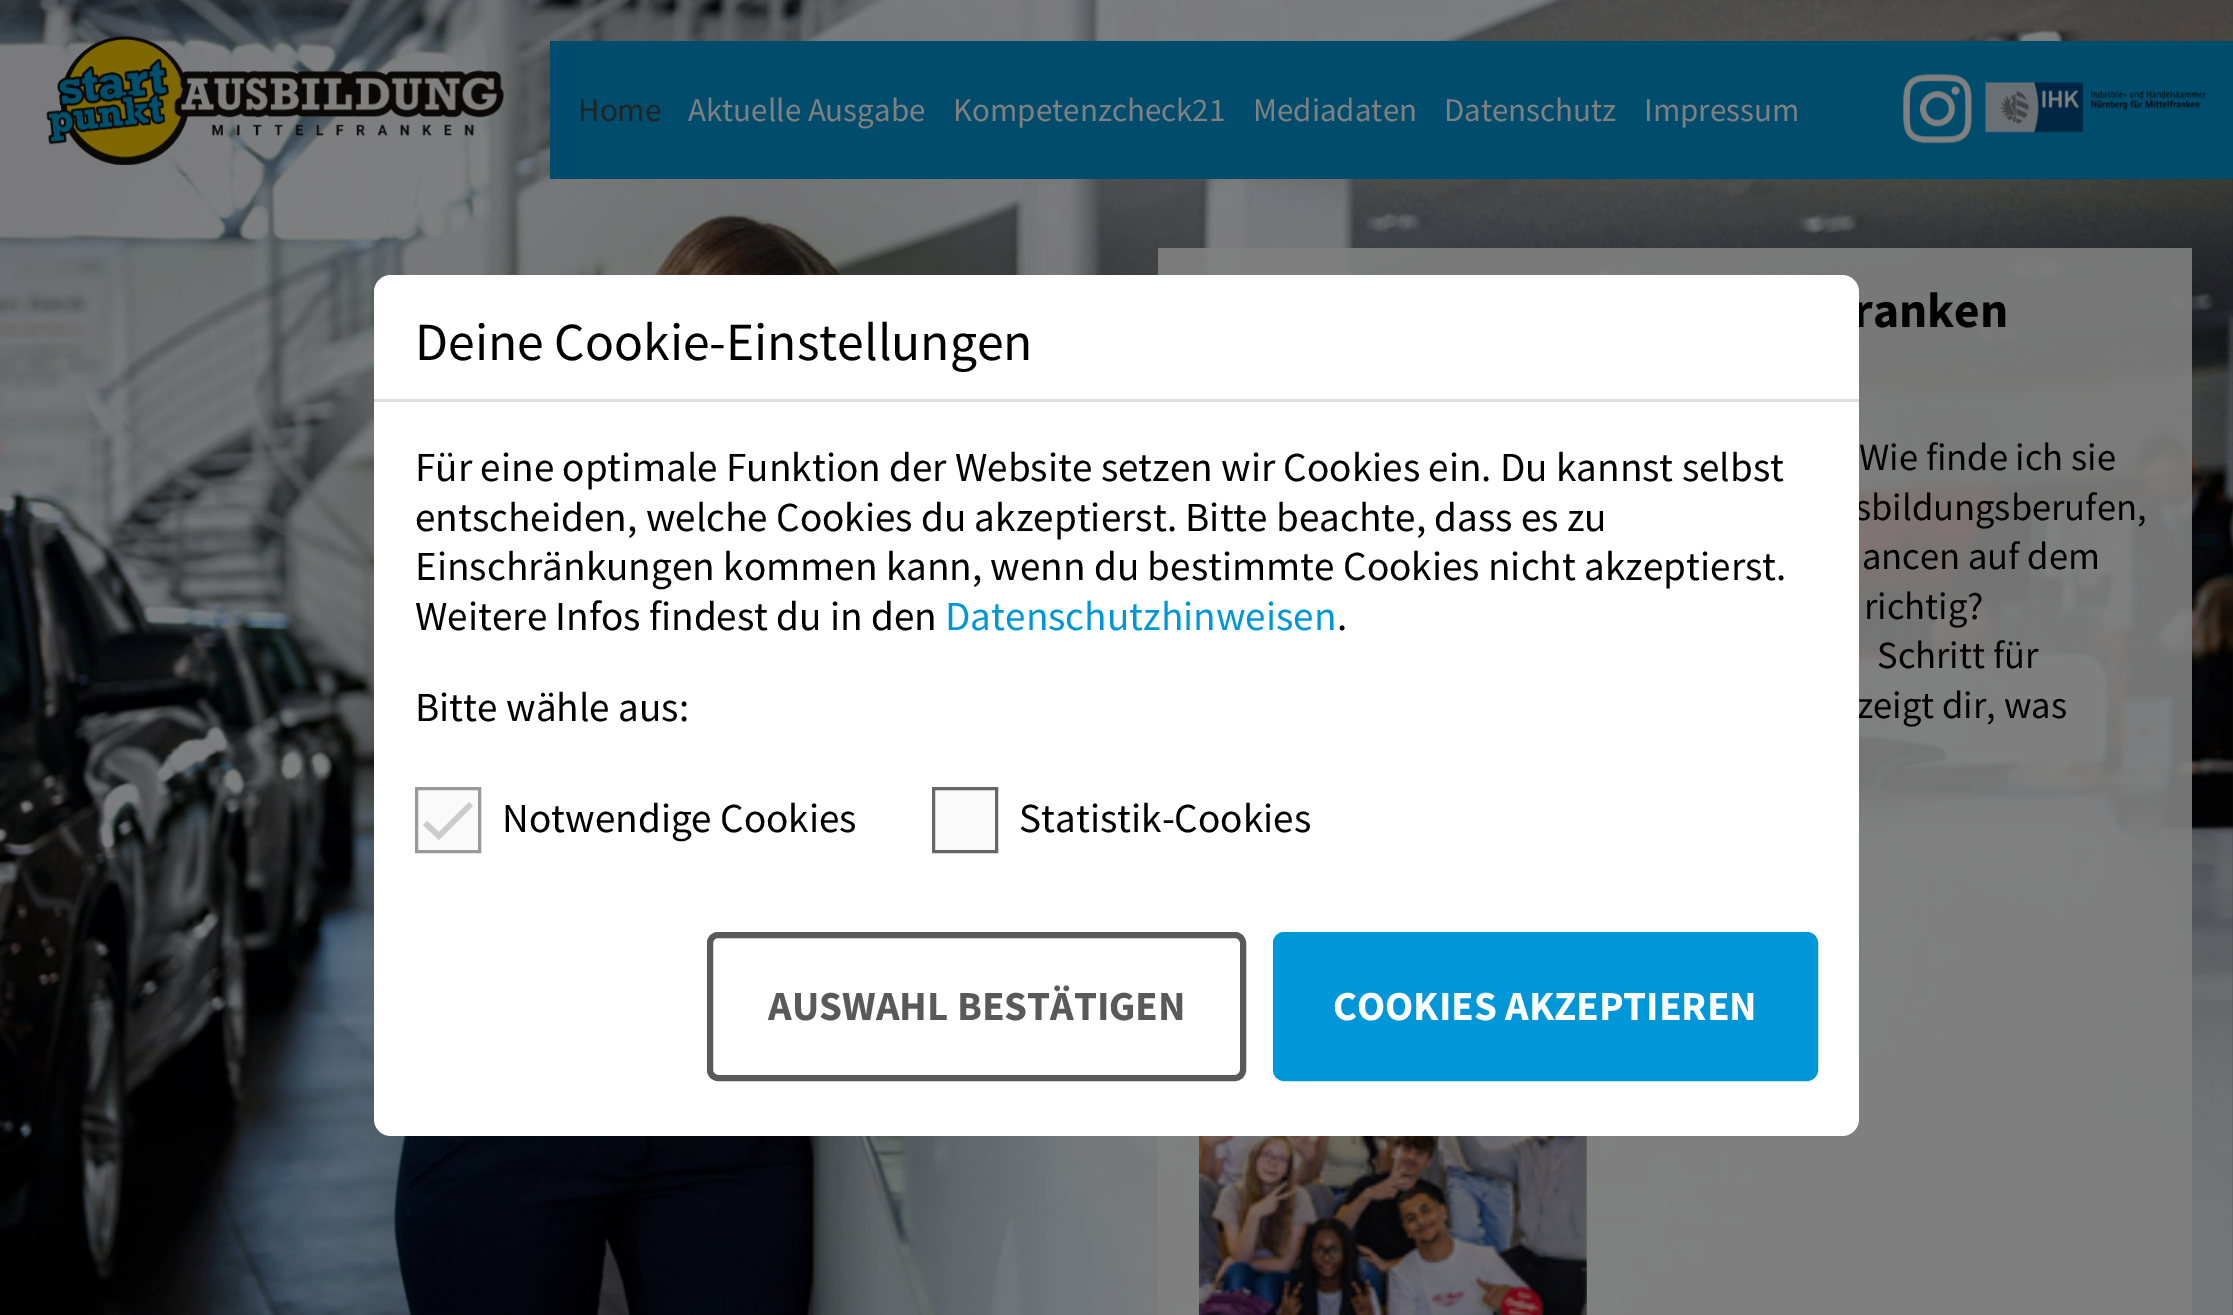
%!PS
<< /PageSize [2233 1315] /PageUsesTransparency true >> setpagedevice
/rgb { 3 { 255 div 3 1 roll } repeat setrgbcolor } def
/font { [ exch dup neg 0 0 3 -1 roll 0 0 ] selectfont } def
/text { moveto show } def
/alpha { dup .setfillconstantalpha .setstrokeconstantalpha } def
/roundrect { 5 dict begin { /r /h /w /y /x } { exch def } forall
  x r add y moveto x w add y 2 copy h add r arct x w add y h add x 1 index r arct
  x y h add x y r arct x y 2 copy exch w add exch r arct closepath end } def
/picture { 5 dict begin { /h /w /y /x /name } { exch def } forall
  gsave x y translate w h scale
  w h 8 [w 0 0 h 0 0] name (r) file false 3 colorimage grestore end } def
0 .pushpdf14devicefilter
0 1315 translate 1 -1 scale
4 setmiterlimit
255 255 255 rgb
0 0 2233 1315 rectfill
(img_01.rgb) 0 0 2233 1315 picture
(img_02.rgb) 277 0 1956 179 picture
(img_03.rgb) 46 36 459 129 picture
0 76 108 rgb
550 41 1683 138 rectfill
(img_04.rgb) 1903 74 69 70 picture
(img_05.rgb) 1985 82 221 51 picture
0.9 alpha
128 128 128 rgb
1158 248 1034 1067 rectfill
1 alpha
(img_06.rgb) 1199 1136 388 179 picture
/SourceSansPro-Regular 33 font
35 35 35 rgb
(Home) 578 121 text
128 128 128 rgb
(Aktuelle Ausgabe) 688 121 text
(Kompetenzcheck21) 953 121 text
(Mediadaten) 1253 121 text
(Datenschutz) 1444 121 text
(Impressum) 1644 121 text
/SourceSansPro-Bold 49.5 font
0 0 0 rgb
(ranken) 1853 327 text
/SourceSansPro-Regular 38.5 font
(Wie finde ich sie) 1859 470 text
(sbildungsberufen,) 1855 520 text
(ancen auf dem) 1862 569 text
(richtig?) 1864 619 text
(Schritt für) 1877 668 text
(zeigt dir, was) 1857 718 text
255 255 255 rgb
374 275 1485 861 17 roundrect fill
0 151 216 rgb
1276 935 539 143 8 roundrect gsave fill grestore
6 setlinewidth
stroke
/SourceSansPro-Bold 41.25 font
255 255 255 rgb
(COOKIES AKZEPTIEREN) 1333 1020 text
89 89 89 rgb
710 935 533 143 8 roundrect stroke
(AUSWAHL BESTÄTIGEN) 768 1020 text
250 250 250 rgb
933.5 788.5 moveto 63 0 rlineto 0 63 rlineto -63 0 rlineto closepath gsave fill grestore
102 102 102 rgb
3 setlinewidth
stroke
/SourceSansPro-Regular 41.25 font
0 0 0 rgb
(Statistik-Cookies) 1019 832 text
250 250 250 rgb
416.5 788.5 moveto 63 0 rlineto 0 63 rlineto -63 0 rlineto closepath gsave fill grestore
153 153 153 rgb
stroke
204 204 204 rgb
439 832 moveto 30 -30 rlineto 4 4 rlineto -34 34 rlineto -16 -15 rlineto 4 -4 rlineto closepath fill
0 0 0 rgb
(Notwendige Cookies) 502 832 text
/SourceSansPro-Regular 53.6 font
(Deine Cookie-Einstellungen) 415 360 text
221 221 221 rgb
374 399 1485 3 rectfill
/SourceSansPro-Regular 41.25 font
0 0 0 rgb
(Bitte wähle aus:) 415 721 text
(.) 1337 630 text
0 151 216 rgb
(Datenschutzhinweisen) 945 630 text
0 0 0 rgb
(Weitere Infos findest du in den) 415 630 text
(Einschränkungen kommen kann, wenn du bestimmte Cookies nicht akzeptierst.) 415 580 text
(entscheiden, welche Cookies du akzeptierst. Bitte beachte, dass es zu) 415 531 text
(Für eine optimale Funktion der Website setzen wir Cookies ein. Du kannst selbst) 415 481 text
.poppdf14devicefilter showpage
